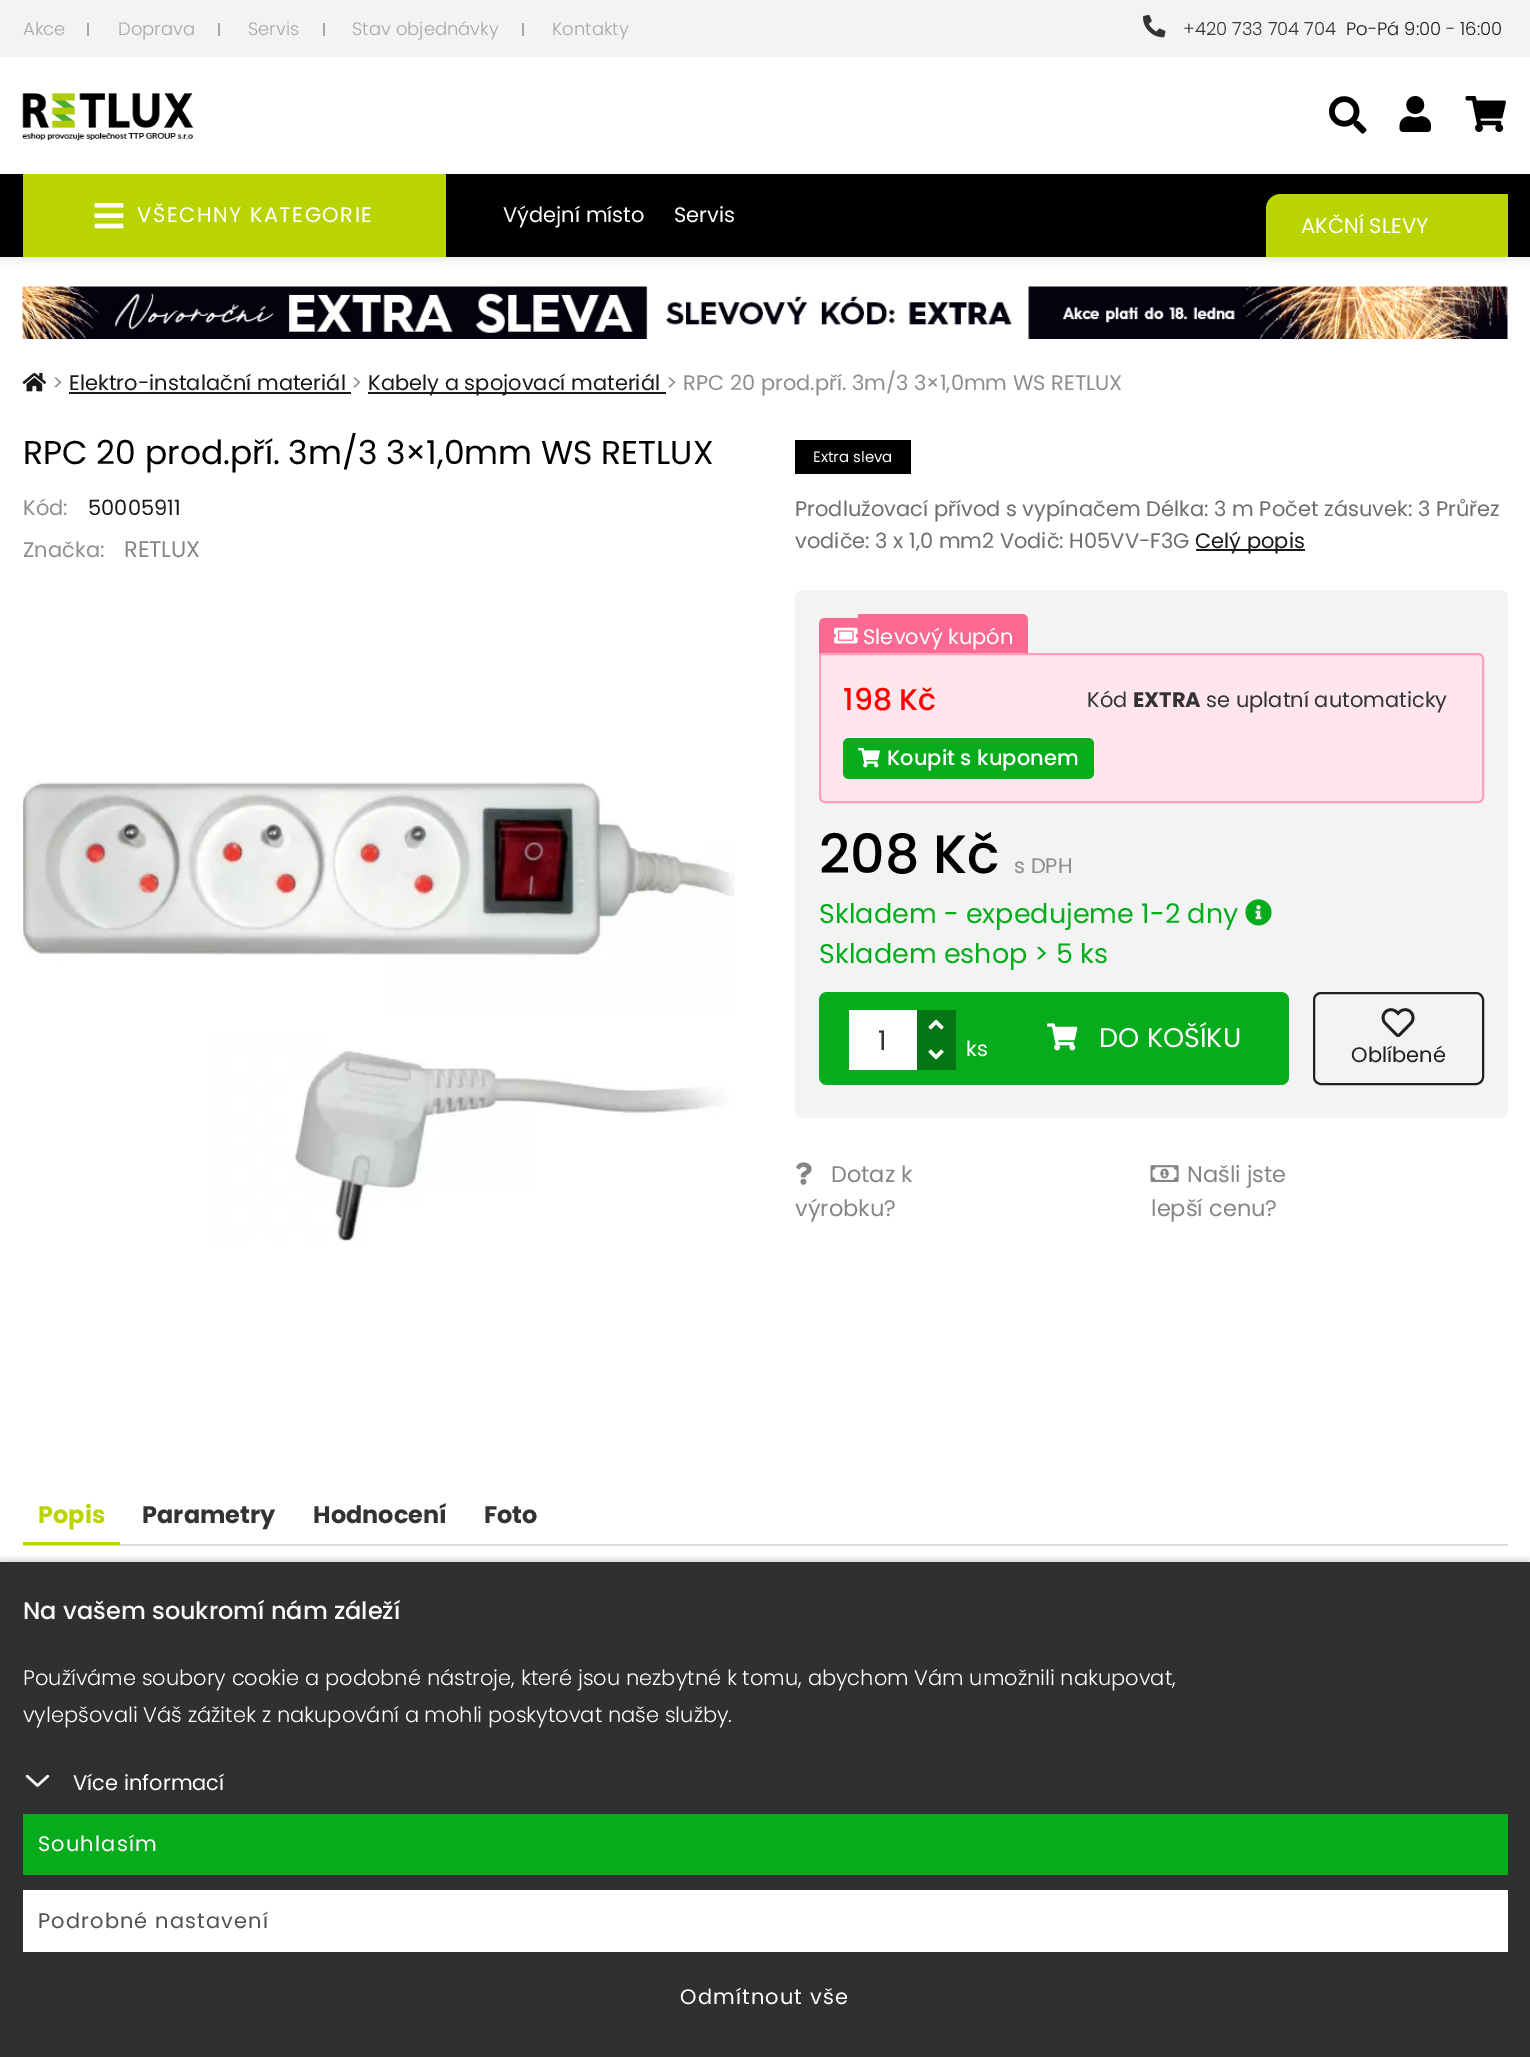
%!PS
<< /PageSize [1530 2057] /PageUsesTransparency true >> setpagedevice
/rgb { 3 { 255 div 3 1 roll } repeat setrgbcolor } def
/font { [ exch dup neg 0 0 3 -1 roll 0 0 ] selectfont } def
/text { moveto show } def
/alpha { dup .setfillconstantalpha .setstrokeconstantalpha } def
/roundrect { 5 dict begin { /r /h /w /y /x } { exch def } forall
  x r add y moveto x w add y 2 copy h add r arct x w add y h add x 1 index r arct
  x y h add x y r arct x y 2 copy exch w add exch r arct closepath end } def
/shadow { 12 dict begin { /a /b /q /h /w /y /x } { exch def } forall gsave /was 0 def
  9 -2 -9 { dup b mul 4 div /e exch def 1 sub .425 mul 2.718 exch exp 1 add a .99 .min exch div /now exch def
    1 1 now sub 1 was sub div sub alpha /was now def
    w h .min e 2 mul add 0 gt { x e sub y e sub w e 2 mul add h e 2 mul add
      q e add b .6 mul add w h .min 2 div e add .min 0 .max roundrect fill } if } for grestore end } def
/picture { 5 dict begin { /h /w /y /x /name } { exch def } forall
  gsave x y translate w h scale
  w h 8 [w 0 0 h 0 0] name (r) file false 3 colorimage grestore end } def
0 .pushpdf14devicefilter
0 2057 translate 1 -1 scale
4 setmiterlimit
255 255 255 rgb
0 0 1530 2057 rectfill
201 201 201 rgb
0 0 1530 257 0 6 0.75 shadow
0 0 0 rgb
0 174 1530 83 rectfill
243 243 243 rgb
0 0 1530 57 rectfill
167 167 167 rgb
87 23 2 13 rectfill
218 23 2 13 rectfill
323 23 2 13 rectfill
522 23 2 13 rectfill
(img_01.rgb) 1143 14 23 24 picture
255 255 255 rgb
0 57 1530 117 rectfill
(img_02.rgb) 22 93 172 48 picture
(img_03.rgb) 1329 96 38 38 picture
(img_04.rgb) 1399 96 32 36 picture
(img_05.rgb) 1465 96 41 36 picture
186 212 1 rgb
23 174 423 83 rectfill
(img_06.rgb) 94 203 30 26 picture
1281 194 moveto 227 0 rlineto 0 63 rlineto -242 0 rlineto 0 -48 rlineto 0 -8.5 6.5 -15 15 -15 rcurveto closepath fill
(img_07.rgb) 22 286 1486 53 picture
(img_08.rgb) 22 372 25 20 picture
26 26 26 rgb
69 392 282 2 rectfill
368 392 298 2 rectfill
(img_09.rgb) 23 782 712 462 picture
0 0 0 rgb
795 440 116 34 rectfill
26 26 26 rgb
1196 549 109 2 rectfill
243 243 243 rgb
795 590 713 528 8 roundrect fill
252 105 147 rgb
825 618 moveto 33 0 rlineto 0 36 rlineto -39 0 rlineto 0 -30 rlineto 0 -3.5 2.5 -6 6 -6 rcurveto closepath fill
858 614 moveto 164 0 rlineto 3.5 0 6 2.5 6 6 rcurveto 0 39 rlineto -170 0 rlineto closepath fill
(img_10.rgb) 834 627 24 17 picture
255 230 236 rgb
820 654 moveto 658 0 rlineto 3 0 5 2 5 5 rcurveto 0 138 rlineto 0 3 -2 5 -5 5 rcurveto -653 0 rlineto -3 0 -5 -2 -5 -5 rcurveto closepath gsave fill grestore
253 160 185 rgb
2 setlinewidth
stroke
7 172 29 rgb
843 738 251 41 6 roundrect fill
(img_11.rgb) 858 747 22 21 picture
(img_12.rgb) 1245 899 27 27 picture
819 992 470 93 8 roundrect fill
255 255 255 rgb
849 1010 68 60 rectfill
4 118 19 rgb
917 1010 39 60 rectfill
(img_13.rgb) 928 1019 16 11 picture
(img_14.rgb) 928 1049 16 11 picture
(img_15.rgb) 1047 1023 31 28 picture
35 31 32 rgb
1314 993 169 91 7 roundrect stroke
(img_16.rgb) 1381 1008 34 29 picture
(img_17.rgb) 796 1162 16 23 picture
(img_18.rgb) 1150 1165 29 17 picture
221 221 221 rgb
23 1544 1485 2 rectfill
186 212 1 rgb
23 1542 97 3 rectfill
0 0 0 rgb
0 1559 1530 496 0 3 0.15 shadow
48 48 48 rgb
0 1562 1530 495 rectfill
(img_19.rgb) 25 1774 25 13 picture
7 172 29 rgb
23 1814 1485 61 rectfill
255 255 255 rgb
23 1890 1485 62 rectfill
/Poppins-Light 18 font
167 167 167 rgb
(Akce) 23 35 text
(Doprava) 118 35 text
(Servis) 248 35 text
(Stav objednávky) 352 35 text
(Kontakty) 552 35 text
51 51 51 rgb
(+420 733 704 704) 1183 35 text
26 26 26 rgb
(Po-Pá 9:00 - 16:00) 1346 35 text
/Poppins-Regular 21 font
255 255 255 rgb
137 222 moveto 1.5 0 (VŠECHNY KATEGORIE) ashow
(Výdejní místo) 503 222 text
(Servis) 674 222 text
(AKČNÍ SLEVY) 1301 233 text
142 142 142 rgb
(>) 52 390 text
26 26 26 rgb
(Elektro-instalační materiál) 69 390 text
142 142 142 rgb
(>) 351 390 text
26 26 26 rgb
(Kabely a spojovací materiál) 368 390 text
142 142 142 rgb
(> RPC 20 prod.pří. 3m/3 3×1,0mm WS RETLUX) 666 390 text
/Poppins-Regular 33 font
0 0 0 rgb
(RPC 20 prod.pří. 3m/3 3×1,0mm WS RETLUX) 23 464 text
/Poppins-Regular 21 font
142 142 142 rgb
(Kód:) 23 515 text
26 26 26 rgb
(50005911) 88 515 text
142 142 142 rgb
(Značka:) 23 557 text
/Poppins-Regular 22.5 font
133 133 133 rgb
(RETLUX) 124 557 text
/Poppins-Regular 15 font
255 255 255 rgb
(Extra sleva) 813 462 text
/Poppins-Regular 21 font
110 110 110 rgb
(Prodlužovací přívod s vypínačem Délka: 3 m Počet zásuvek: 3 Průřez) 795 516 text
(vodiče: 3 x 1,0 mm2 Vodič: H05VV-F3G) 795 548 text
26 26 26 rgb
(Celý popis) 1195 548 text
255 255 255 rgb
(Slevový kupón) 863 644 text
/Poppins-Medium 30 font
255 0 0 rgb
(198 Kč) 843 710 text
/Poppins-Regular 21 font
51 51 51 rgb
(Kód) 1087 707 text
/Poppins-Bold 21 font
(EXTRA) 1133 707 text
/Poppins-Regular 21 font
(se uplatní automaticky) 1206 707 text
/Poppins-Medium 21 font
255 255 255 rgb
(Koupit s kuponem) 887 765 text
/Poppins-Medium 54 font
0 0 0 rgb
(208 Kč) 819 873 text
/Poppins-Regular 21 font
142 142 142 rgb
(s DPH) 1014 873 text
/Poppins-Regular 27 font
7 172 29 rgb
(Skladem - expedujeme 1-2 dny) 819 923 text
(Skladem eshop > 5 ks) 819 963 text
51 51 51 rgb
(1) 878 1050 text
/Poppins-Regular 21 font
255 255 255 rgb
(ks) 966 1056 text
/Poppins-Regular 27 font
(DO KOŠÍKU) 1099 1047 text
/Poppins-Regular 21 font
35 31 32 rgb
(Oblíbené) 1351 1062 text
/Poppins-Regular 22.5 font
133 133 133 rgb
(Dotaz k) 831 1182 text
(výrobku?) 795 1216 text
(Našli jste) 1187 1182 text
(lepší cenu?) 1151 1216 text
/Poppins-Bold 24 font
186 212 1 rgb
(Popis) 38 1523 text
51 51 51 rgb
(Parametry) 142 1523 text
(Hodnocení) 313 1523 text
(Foto) 484 1523 text
/Poppins-Medium 24 font
248 248 248 rgb
(Na vašem soukromí nám záleží) 23 1619 text
/Poppins-Light 21 font
255 255 255 rgb
(Používáme soubory cookie a podobné nástroje, které jsou nezbytné k tomu, abychom Vám umožnili nakupovat,) 23 1685 text
(vylepšovali Váš zážitek z nakupování a mohli poskytovat naše služby.) 23 1722 text
/Poppins-Regular 21 font
(Více informací) 73 1790 text
38 1851 moveto 1.1 0 (Souhlasím) ashow
83 82 82 rgb
38 1928 moveto 1.1 0 (Podrobné nastavení) ashow
255 255 255 rgb
680 2004 moveto 1.1 0 (Odmítnout vše) ashow
.poppdf14devicefilter showpage
